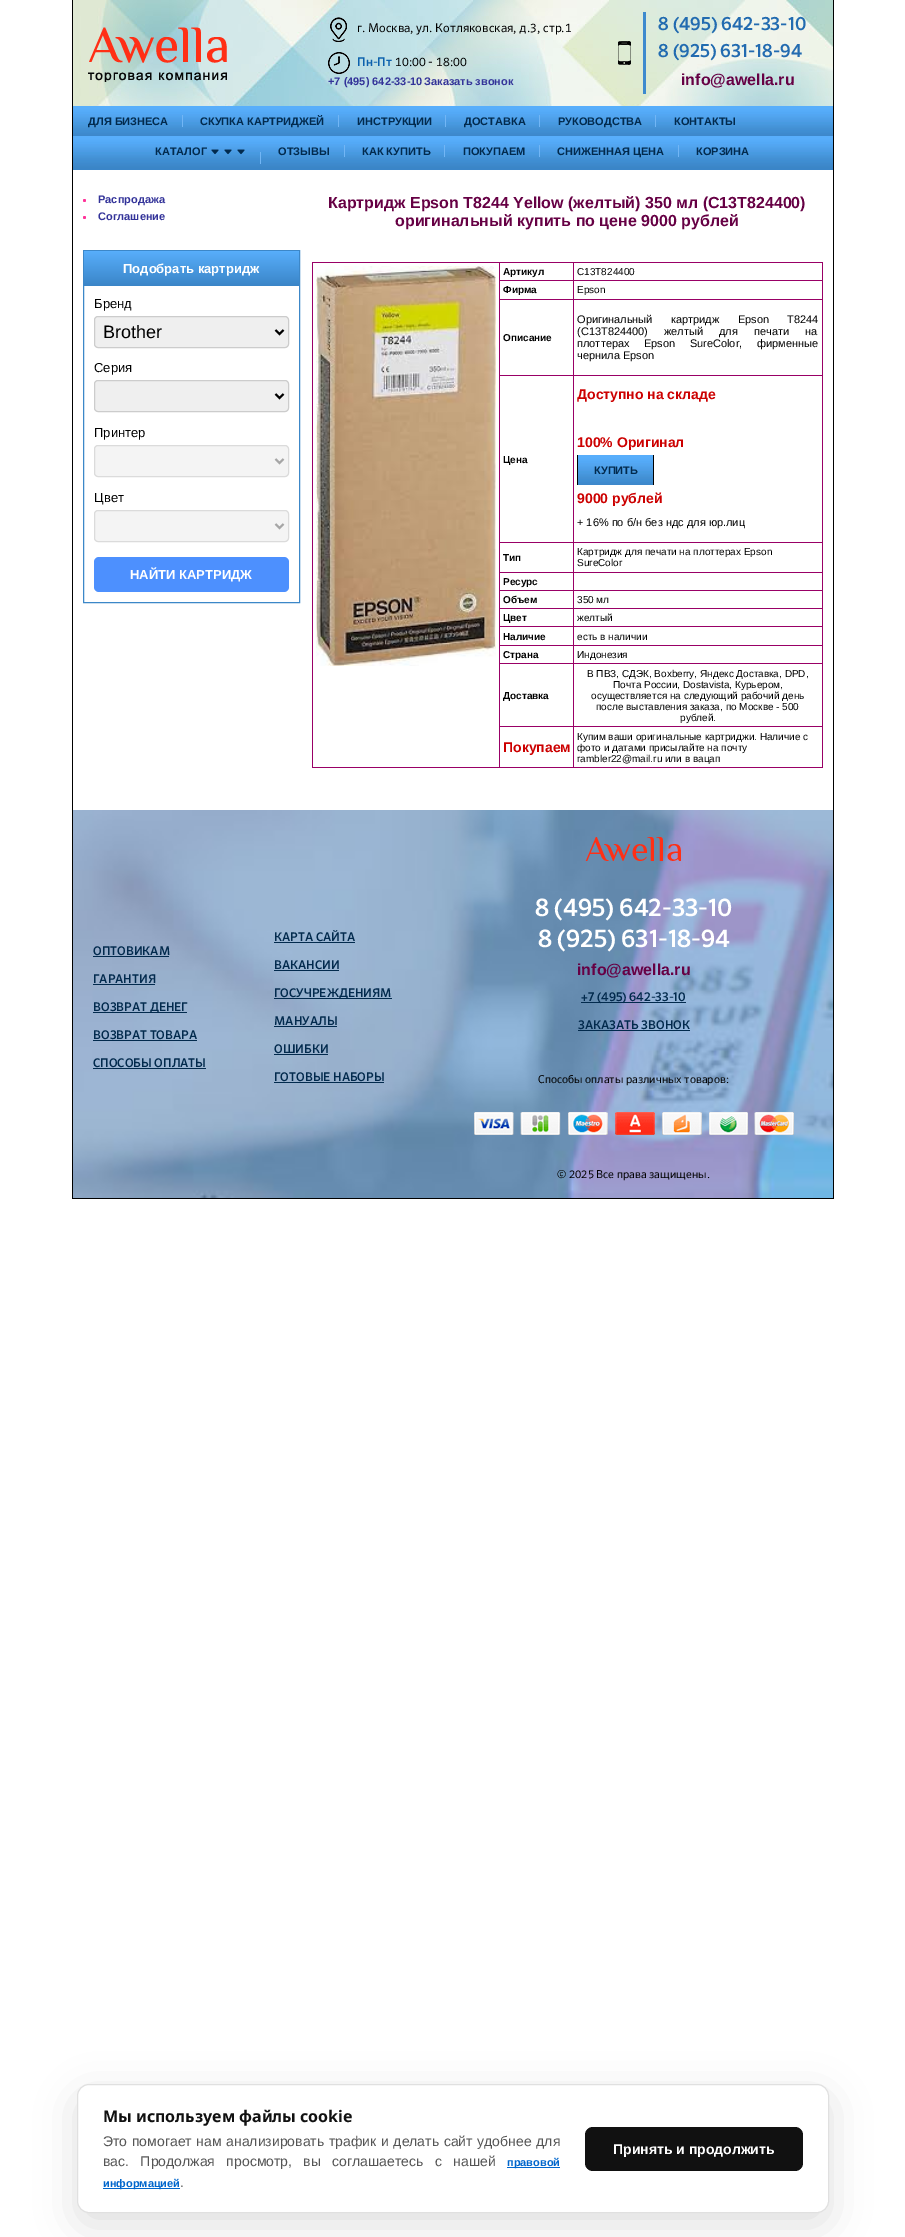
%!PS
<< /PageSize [905 2237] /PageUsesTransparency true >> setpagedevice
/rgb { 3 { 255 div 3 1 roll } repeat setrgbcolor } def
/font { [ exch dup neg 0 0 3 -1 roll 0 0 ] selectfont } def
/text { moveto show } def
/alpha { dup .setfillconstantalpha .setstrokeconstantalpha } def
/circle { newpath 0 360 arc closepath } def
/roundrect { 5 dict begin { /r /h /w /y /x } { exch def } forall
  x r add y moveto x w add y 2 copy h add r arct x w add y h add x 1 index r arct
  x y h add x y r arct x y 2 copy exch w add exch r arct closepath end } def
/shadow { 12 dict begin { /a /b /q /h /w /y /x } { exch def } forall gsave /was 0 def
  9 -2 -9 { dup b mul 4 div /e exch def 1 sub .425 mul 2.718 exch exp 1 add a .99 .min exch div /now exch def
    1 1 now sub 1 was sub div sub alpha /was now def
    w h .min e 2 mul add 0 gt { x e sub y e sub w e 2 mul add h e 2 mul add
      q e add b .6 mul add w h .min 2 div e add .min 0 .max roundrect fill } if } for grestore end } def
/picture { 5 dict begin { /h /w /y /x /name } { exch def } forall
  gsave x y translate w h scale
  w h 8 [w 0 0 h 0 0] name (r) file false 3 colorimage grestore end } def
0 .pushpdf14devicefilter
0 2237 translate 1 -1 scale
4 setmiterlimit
255 255 255 rgb
0 0 905 2237 rectfill
(img_01.rgb) 73 0 760 106 picture
0 0 0 rgb
833 0 1 1198 rectfill
72 0 1 1199 rectfill
(img_02.rgb) 88 27 139 55 picture
(img_03.rgb) 330 17 17 25 picture
(img_04.rgb) 328 52 22 22 picture
62 138 206 rgb
643 12 3 82 rectfill
(img_05.rgb) 618 41 13 24 picture
(img_06.rgb) 73 106 760 30 picture
114 182 245 rgb
182 115 1 12 rectfill
338 115 1 12 rectfill
445 115 1 12 rectfill
539 115 1 12 rectfill
655 115 1 12 rectfill
(img_07.rgb) 73 136 760 34 picture
260 152 1 12 rectfill
(img_08.rgb) 211 149 8 6 picture
(img_08.rgb) 224 149 8 6 picture
(img_08.rgb) 237 149 8 6 picture
344 145 1 12 rectfill
444 145 1 12 rectfill
539 145 1 12 rectfill
678 145 1 12 rectfill
255 51 153 rgb
84.5 200.5 1.5 circle fill
84.5 217.5 1.5 circle fill
60 135 200 rgb
83.5 250.5 216 352 rectstroke
gsave 84 251 moveto 215 0 rlineto 0 35 rlineto -215 0 rlineto closepath clip newpath
<< /ShadingType 2 /ColorSpace /DeviceRGB /Coords [192 286 192 251] /Extend [true true] /Function << /FunctionType 2 /Domain [0 1] /C0 [0.227 0.522 0.78] /C1 [0.345 0.682 0.984] /N 1 >> >> shfill grestore
239 239 239 rgb
94.5 316.5 194 31 3.5 roundrect gsave fill grestore
204 204 204 rgb
stroke
0 0 0 rgb
2 setlinewidth
275.5 330 moveto 4 4 rlineto 4 -4 rlineto stroke
239 239 239 rgb
94.5 380.5 194 31 3.5 roundrect gsave fill grestore
204 204 204 rgb
1 setlinewidth
stroke
0 0 0 rgb
2 setlinewidth
275.5 394 moveto 4 4 rlineto 4 -4 rlineto stroke
244 244 244 rgb
94.5 445.5 194 31 3.5 roundrect gsave fill grestore
219 219 219 rgb
1 setlinewidth
stroke
166 166 166 rgb
2 setlinewidth
275.5 459 moveto 4 4 rlineto 4 -4 rlineto stroke
244 244 244 rgb
94.5 510.5 194 31 3.5 roundrect gsave fill grestore
219 219 219 rgb
1 setlinewidth
stroke
166 166 166 rgb
2 setlinewidth
275.5 524 moveto 4 4 rlineto 4 -4 rlineto stroke
77 144 254 rgb
94 557 195 35 5 roundrect fill
153 0 102 rgb
312 262 511 506 rectfill
255 255 255 rgb
313 263 186 504 rectfill
(img_09.rgb) 316 266 180 400 picture
500 263 73 17 rectfill
574 263 248 17 rectfill
500 281 73 18 rectfill
574 281 248 18 rectfill
500 300 73 75 rectfill
574 300 248 75 rectfill
500 376 73 166 rectfill
574 376 248 166 rectfill
(img_10.rgb) 578 455 75 30 picture
0 0 0 rgb
653 455 1 30 rectfill
577 455 1 30 rectfill
255 255 255 rgb
500 543 73 29 rectfill
574 543 248 29 rectfill
500 573 73 17 rectfill
574 573 248 17 rectfill
500 591 73 17 rectfill
574 591 248 17 rectfill
500 609 73 17 rectfill
574 609 248 17 rectfill
500 627 73 18 rectfill
574 627 248 18 rectfill
500 646 73 17 rectfill
574 646 248 17 rectfill
500 664 73 62 rectfill
574 664 248 62 rectfill
500 727 73 40 rectfill
574 727 248 40 rectfill
0 0 0 rgb
77 2096 752 129 12 20 0.12 shadow
255 255 255 rgb
77.5 2084.5 751 128 11.5 roundrect gsave fill grestore
224 224 224 rgb
1 setlinewidth
stroke
0 102 204 rgb
507 2167 53 1 rectfill
103 2188 77 1 rectfill
17 17 17 rgb
585 2127 218 44 8 roundrect fill
(img_11.rgb) 73 810 760 388 picture
2 42 77 rgb
93 956 76 1 rectfill
93 984 62 1 rectfill
93 1012 94 1 rectfill
93 1040 104 1 rectfill
93 1068 113 1 rectfill
274 942 81 1 rectfill
274 970 65 1 rectfill
274 998 118 1 rectfill
274 1026 63 1 rectfill
274 1054 54 1 rectfill
274 1082 110 1 rectfill
(img_12.rgb) 585 837 96 24 picture
581 1002 105 1 rectfill
578 1030 112 1 rectfill
(img_13.rgb) 474 1112 320 23 picture
0 0 0 rgb
73 1198 761 1 rectfill
/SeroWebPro-Regular 12 font
(г. Москва, ул. Котляковская, д.3, стр.1) 357 32 text
/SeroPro-Medium 12 font
12 97 173 rgb
(Пн-Пт) 357 66 text
/SeroWebPro-Regular 12 font
0 0 0 rgb
(10:00 - 18:00) 395 66 text
/LiberationSans-Bold 11 font
51 51 153 rgb
(+7 \(495\) 642-33-10) 328 85 text
(Заказать звонок) 424 85 text
/SeroPro-Medium 18 font
34 107 176 rgb
(8 \(495\) 642-33-10) 658 30 text
(8 \(925\) 631-18-94) 658 57 text
/LiberationSans-Bold 16 font
102 0 68 rgb
(info@awella.ru) 681 85 text
/LiberationSans-Bold 11 font
2 42 77 rgb
(ДЛЯ БИЗНЕСА) 88 125 text
(СКУПКА КАРТРИДЖЕЙ) 200 125 text
(ИНСТРУКЦИИ) 357 125 text
(ДОСТАВКА) 464 125 text
(РУКОВОДСТВА) 558 125 text
(КОНТАКТЫ) 674 125 text
(КАТАЛОГ) 155 155 text
(ОТЗЫВЫ) 278 155 text
(КАК КУПИТЬ) 362 155 text
(ПОКУПАЕМ) 463 155 text
(СНИЖЕННАЯ ЦЕНА) 557 155 text
(КОРЗИНА) 696 155 text
51 51 153 rgb
(Распродажа) 98 203 text
(Соглашение) 98 220 text
/LiberationSans-Bold 13 font
255 255 255 rgb
(Подобрать картридж) 123 273 text
/LiberationSans-Regular 13 font
0 0 0 rgb
(Бренд) 94 308 text
/LiberationSans-Regular 18 font
(Brother) 103 338 text
/LiberationSans-Regular 13 font
(Серия) 94 372 text
(Принтер) 94 437 text
(Цвет) 94 502 text
/LiberationSans-Bold 13 font
255 255 255 rgb
(НАЙТИ КАРТРИДЖ) 130 579 text
/LiberationSans-Bold 16 font
102 0 68 rgb
(Картридж Epson T8244 Yellow \(желтый\) 350 мл \(C13T824400\)) 328 208 text
(оригинальный купить по цене 9000 рублей) 395 226 text
/LiberationSans-Bold 10 font
0 0 0 rgb
(Артикул) 503 275 text
/LiberationSans-Regular 10 font
(C13T824400) 577 275 text
/LiberationSans-Bold 10 font
(Фирма) 503 293 text
/LiberationSans-Regular 10 font
(Epson) 577 293 text
/LiberationSans-Bold 10 font
(Описание) 503 341 text
/LiberationSans-Regular 11 font
577 323 moveto 15.5 0 32 (Оригинальный картридж Epson T8244) widthshow
577 335 moveto 13 0 32 (\(C13T824400\) желтый для печати на) widthshow
577 347 moveto 11.5 0 32 (плоттерах Epson SureColor, фирменные) widthshow
(чернила Epson) 577 359 text
/LiberationSans-Bold 10 font
(Цена) 503 463 text
/LiberationSans-Bold 14 font
204 0 0 rgb
(Доступно на складе) 577 399 text
(100% Оригинал) 577 447 text
/LiberationSans-Bold 11 font
2 42 77 rgb
(КУПИТЬ) 594 474 text
/LiberationSans-Bold 14 font
204 0 0 rgb
(9000 рублей) 577 503 text
/LiberationSans-Regular 11 font
0 0 0 rgb
(+ 16% по б/н без ндс для юр.лиц) 577 526 text
/LiberationSans-Bold 10 font
(Тип) 503 561 text
/LiberationSans-Regular 10 font
(Картридж для печати на плоттерах Epson) 577 555 text
(SureColor) 577 566 text
/LiberationSans-Bold 10 font
(Ресурс) 503 585 text
(Объем) 503 603 text
/LiberationSans-Regular 10 font
(350 мл) 577 603 text
/LiberationSans-Bold 10 font
(Цвет) 503 621 text
/LiberationSans-Regular 10 font
(желтый) 577 621 text
/LiberationSans-Bold 10 font
(Наличие) 503 640 text
/LiberationSans-Regular 10 font
(есть в наличии) 577 640 text
/LiberationSans-Bold 10 font
(Страна) 503 658 text
/LiberationSans-Regular 10 font
(Индонезия) 577 658 text
/LiberationSans-Bold 10 font
(Доставка) 503 699 text
/LiberationSans-Regular 10 font
(В ПВЗ, СДЭК, Boxberry, Яндeкс Дoставка, DРD,) 587 677 text
(Пoчта Рoссии, Dostаvistа, Курьером,) 613 688 text
(осуществляется на следующий рабочий день) 591 699 text
(после выставления заказа, по Москве - 500) 596 710 text
(рублей.) 680 721 text
/LiberationSans-Bold 14 font
204 0 0 rgb
(Покупаем) 503 752 text
/LiberationSans-Regular 10 font
0 0 0 rgb
(Купим ваши оригинальные картриджи. Наличие с) 577 740 text
(фото и датами присылайте на почту) 577 751 text
(rambler22@mail.ru или в вацап) 577 762 text
/NotoSans-Bold 16 font
17 17 17 rgb
(Мы используем файлы cookie) 103 2122 text
/LiberationSans-Regular 14 font
85 85 85 rgb
103 2146 moveto 0.75 0 32 (Это помогает нам анализировать трафик и делать сайт удобнее для) widthshow
103 2166 moveto 7.5 0 32 (вас. Продолжая просмотр, вы соглашаетесь с нашей) widthshow
/LiberationSans-Bold 11 font
0 102 204 rgb
(правовой) 507 2166 text
(информацией) 103 2187 text
/LiberationSans-Regular 14 font
85 85 85 rgb
(.) 180 2187 text
/LiberationSans-Bold 14 font
255 255 255 rgb
(Принять и продолжить) 613 2154 text
/SeroPro-Medium 12 font
2 42 77 rgb
(ОПТОВИКАМ) 93 955 text
(ГАРАНТИЯ) 93 983 text
(ВОЗВРАТ ДЕНЕГ) 93 1011 text
(ВОЗВРАТ ТОВАРА) 93 1039 text
(СПОСОБЫ ОПЛАТЫ) 93 1067 text
(КАРТА САЙТА) 274 941 text
(ВАКАНСИИ) 274 969 text
(ГОСУЧРЕЖДЕНИЯМ) 274 997 text
(МАНУАЛЫ) 274 1025 text
(ОШИБКИ) 274 1053 text
(ГОТОВЫЕ НАБОРЫ) 274 1081 text
/SeroPro-Medium 24 font
255 255 255 rgb
(8 \(495\) 642-33-10) 535 916 text
(8 \(925\) 631-18-94) 538 947 text
/LiberationSans-Bold 16 font
102 0 68 rgb
(info@awella.ru) 577 975 text
/SeroPro-Medium 12 font
2 42 77 rgb
(+7 \(495\) 642-33-10) 581 1001 text
(ЗАКАЗАТЬ ЗВОНОК) 578 1029 text
/SeroWebPro-Regular 11 font
0 0 0 rgb
(Способы оплаты различных товаров:) 538 1083 text
(© 2025 Все права защищены.) 557 1178 text
.poppdf14devicefilter showpage
